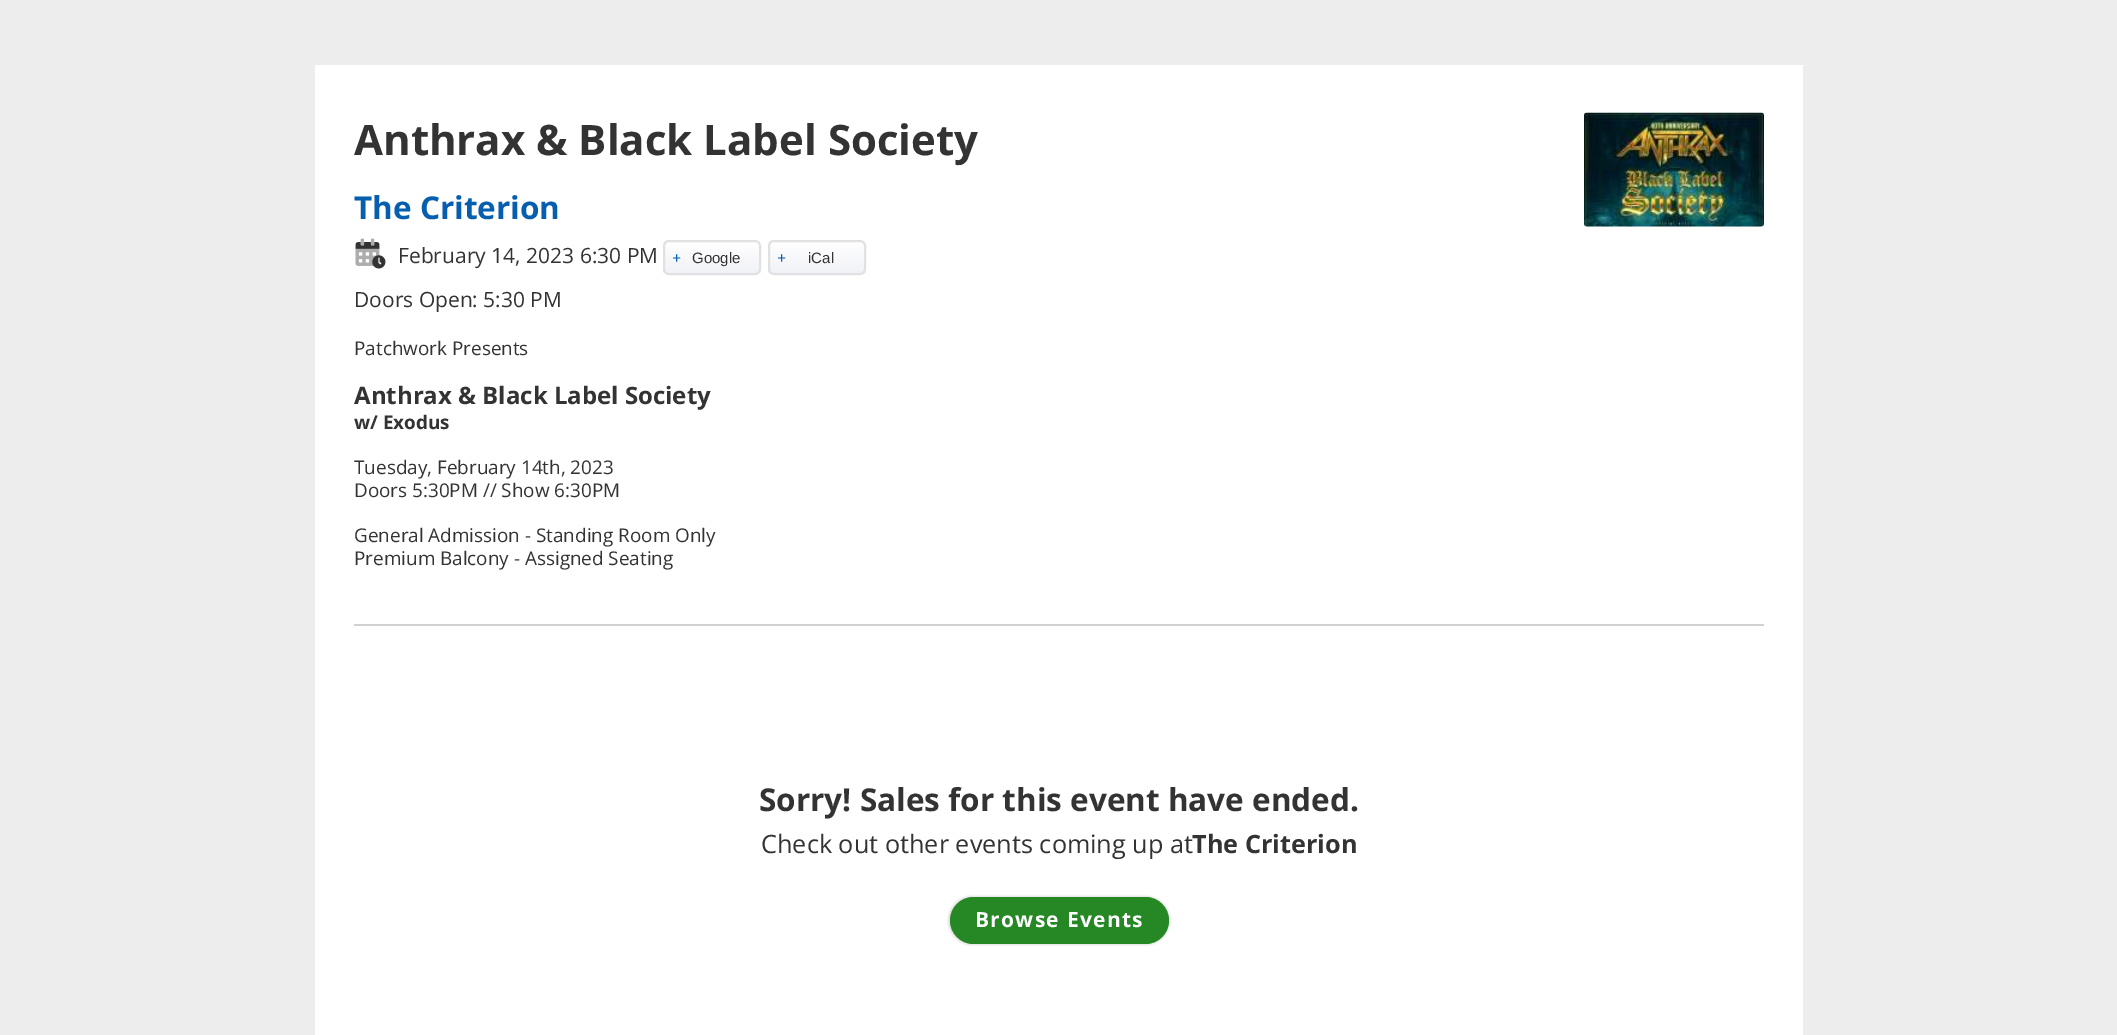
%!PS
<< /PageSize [2117 1035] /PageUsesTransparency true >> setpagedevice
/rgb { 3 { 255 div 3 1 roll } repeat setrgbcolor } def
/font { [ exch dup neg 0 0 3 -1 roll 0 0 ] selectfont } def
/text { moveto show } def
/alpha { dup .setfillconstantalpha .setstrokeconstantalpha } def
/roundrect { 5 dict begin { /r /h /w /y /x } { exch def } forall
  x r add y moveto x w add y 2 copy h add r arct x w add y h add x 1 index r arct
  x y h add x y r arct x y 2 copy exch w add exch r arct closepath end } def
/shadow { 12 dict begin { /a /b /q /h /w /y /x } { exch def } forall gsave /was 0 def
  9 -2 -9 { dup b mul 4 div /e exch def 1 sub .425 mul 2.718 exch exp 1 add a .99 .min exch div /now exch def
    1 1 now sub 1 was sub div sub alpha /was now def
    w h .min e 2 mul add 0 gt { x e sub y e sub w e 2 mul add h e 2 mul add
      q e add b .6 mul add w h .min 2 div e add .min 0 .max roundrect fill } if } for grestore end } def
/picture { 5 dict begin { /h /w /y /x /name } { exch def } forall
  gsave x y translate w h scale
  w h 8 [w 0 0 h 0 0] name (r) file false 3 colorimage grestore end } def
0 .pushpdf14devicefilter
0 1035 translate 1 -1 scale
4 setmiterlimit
237 237 237 rgb
0 0 2117 1035 rectfill
255 255 255 rgb
315 65 1488 970 rectfill
(img_01.rgb) 1584 112 180 115 picture
(img_03.rgb) 355 242 25 7 picture
(img_02.rgb) 355 238 25 28 picture
(img_04.rgb) 372 255 14 14 picture
gsave
663 240 98 35 6 roundrect clip newpath
gsave 663 242 moveto 98 0 rlineto 0 31 rlineto -98 0 rlineto closepath clip newpath
<< /ShadingType 2 /ColorSpace /DeviceRGB /Coords [712 242 712 273] /Extend [true true] /Function << /FunctionType 2 /Domain [0 1] /C0 [1 1 1] /C1 [0.945 0.949 0.969] /N 1 >> >> shfill grestore
grestore
225 225 225 rgb
2 setlinewidth
664 241 96 33 5 roundrect stroke
gsave
768 240 98 35 6 roundrect clip newpath
gsave 768 242 moveto 98 0 rlineto 0 31 rlineto -98 0 rlineto closepath clip newpath
<< /ShadingType 2 /ColorSpace /DeviceRGB /Coords [817 242 817 273] /Extend [true true] /Function << /FunctionType 2 /Domain [0 1] /C0 [1 1 1] /C1 [0.945 0.949 0.969] /N 1 >> >> shfill grestore
grestore
769 241 96 33 5 roundrect stroke
208 208 208 rgb
354 624 1410 2 rectfill
224 224 224 rgb
948 896 222 49 24.5 1 1 shadow
37 136 37 rgb
950 897 219 47 23.5 roundrect fill
/OpenSans-Bold 42 font
51 51 51 rgb
(Anthrax & Black Label Society) 354 155 text
/OpenSans-Bold 31.5 font
6 95 174 rgb
(The Criterion) 354 219 text
/OpenSans-Regular 21 font
51 51 51 rgb
(February 14, 2023 6:30 PM) 398 263 text
/LiberationSans-Italic 15 font
6 95 174 rgb
(+) 672 263 text
/LiberationSans-Regular 15 font
51 51 51 rgb
(Google) 692 263 text
/LiberationSans-Italic 15 font
6 95 174 rgb
(+) 777 263 text
/LiberationSans-Regular 15 font
51 51 51 rgb
(iCal) 808 263 text
/OpenSans-Regular 21 font
(Doors Open: 5:30 PM) 354 307 text
/OpenSans-Regular 18.9 font
(Patchwork Presents) 354 355 text
/OpenSans-Bold 24 font
(Anthrax & Black Label Society) 354 404 text
/OpenSans-Bold 18.9 font
(w/ Exodus) 354 429 text
/OpenSans-Regular 18.9 font
(Tuesday, February 14th, 2023) 354 474 text
(Doors 5:30PM // Show 6:30PM) 354 497 text
(General Admission - Standing Room Only) 354 542 text
(Premium Balcony - Assigned Seating) 354 565 text
/OpenSans-Bold 31.5 font
(Sorry! Sales for this event have ended.) 759 811 text
/OpenSans-Regular 25.25 font
(Check out other events coming up at) 761 853 text
/OpenSans-Bold 25.25 font
(The Criterion) 1192 853 text
/OpenSans-Bold 21 font
255 255 255 rgb
975 927 moveto 1.25 0 (Browse Events) ashow
.poppdf14devicefilter showpage
